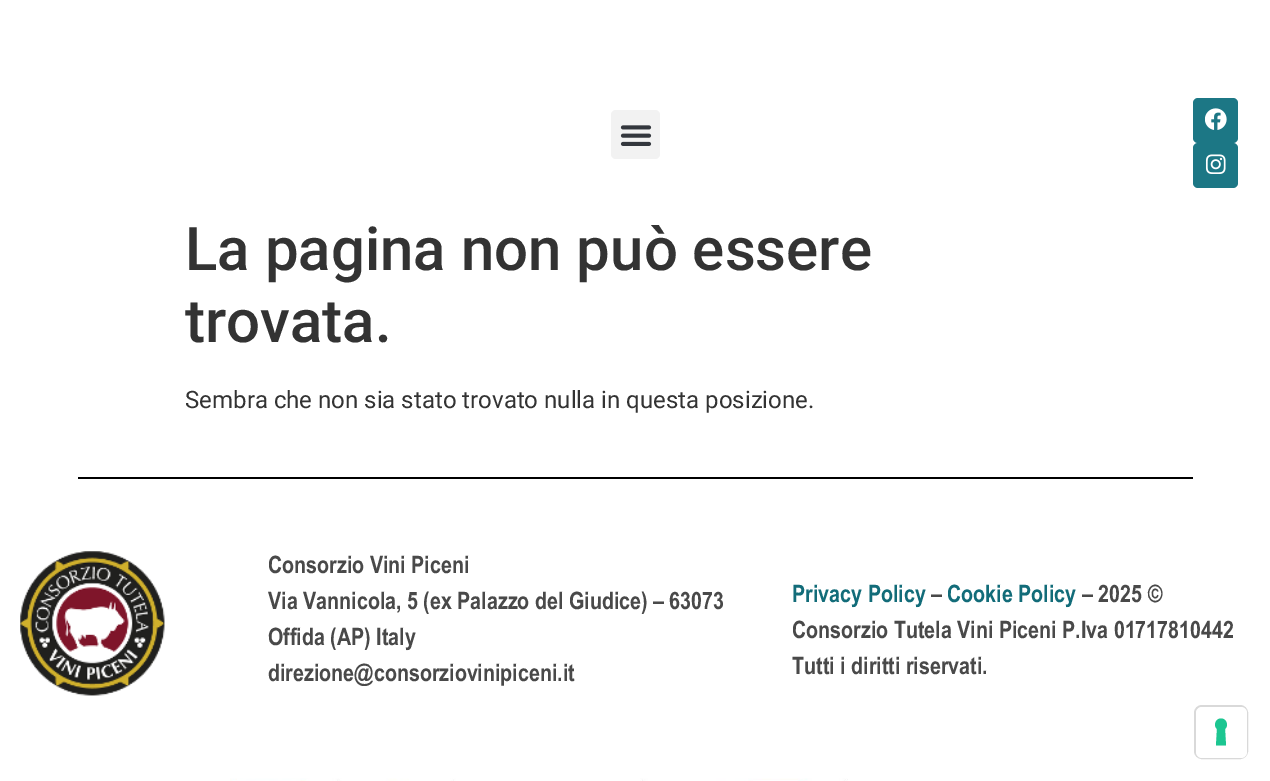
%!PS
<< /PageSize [1270 781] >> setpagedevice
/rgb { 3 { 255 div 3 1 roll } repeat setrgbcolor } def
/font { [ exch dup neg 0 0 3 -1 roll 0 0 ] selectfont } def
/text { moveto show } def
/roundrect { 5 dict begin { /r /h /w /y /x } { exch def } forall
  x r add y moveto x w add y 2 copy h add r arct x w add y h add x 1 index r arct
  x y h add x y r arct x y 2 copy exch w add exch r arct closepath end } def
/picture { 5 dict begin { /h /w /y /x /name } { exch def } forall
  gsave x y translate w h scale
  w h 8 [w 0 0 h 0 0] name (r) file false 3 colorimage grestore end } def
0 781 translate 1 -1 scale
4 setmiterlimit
255 255 255 rgb
0 0 1270 781 rectfill
242 242 242 rgb
611 110 49 49 5 roundrect fill
(img_01.rgb) 620 125 32 21 picture
28 119 133 rgb
1193 98 45 45 5 roundrect fill
(img_02.rgb) 1205 108 22 22 picture
1193 143 45 45 5 roundrect fill
(img_03.rgb) 1205 154 21 20 picture
0 0 0 rgb
78 477 1115 2 rectfill
(img_04.rgb) 20 551 145 145 picture
(img_05.rgb) 230 778 618 3 picture
217 217 217 rgb
2 setlinewidth
1195 706 52 52 7 roundrect stroke
255 255 255 rgb
1196 707 51 51 6 roundrect fill
28 198 145 rgb
1221 718.5 moveto 5.5 0 8 7 4 10.5 rcurveto 1 16.5 rlineto -10 0 rlineto 1 -16.5 rlineto -4 -3.5 -1.5 -10.5 4 -10.5 rcurveto closepath eofill
/Roboto-Medium 60 font
51 51 51 rgb
(La pagina non può essere) 185 270 text
(trovata.) 185 342 text
/Roboto-Regular 24 font
(Sembra che non sia stato trovato nulla in questa posizione.) 185 408 text
/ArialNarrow-Bold 24 font
73 73 73 rgb
(Consorzio Vini Piceni) 268 573 text
(Via Vannicola, 5 \(ex Palazzo del Giudice\) – 63073) 268 609 text
(Offida \(AP\) Italy) 268 645 text
(direzione@consorziovinipiceni.it) 268 681 text
18 108 121 rgb
(Privacy Policy) 792 602 text
73 73 73 rgb
(–) 931 602 text
18 108 121 rgb
(Cookie Policy) 947 602 text
73 73 73 rgb
(– 2025 ©) 1082 602 text
(Consorzio Tutela Vini Piceni P.Iva 01717810442) 792 638 text
(Tutti i diritti riservati.) 792 674 text
showpage
